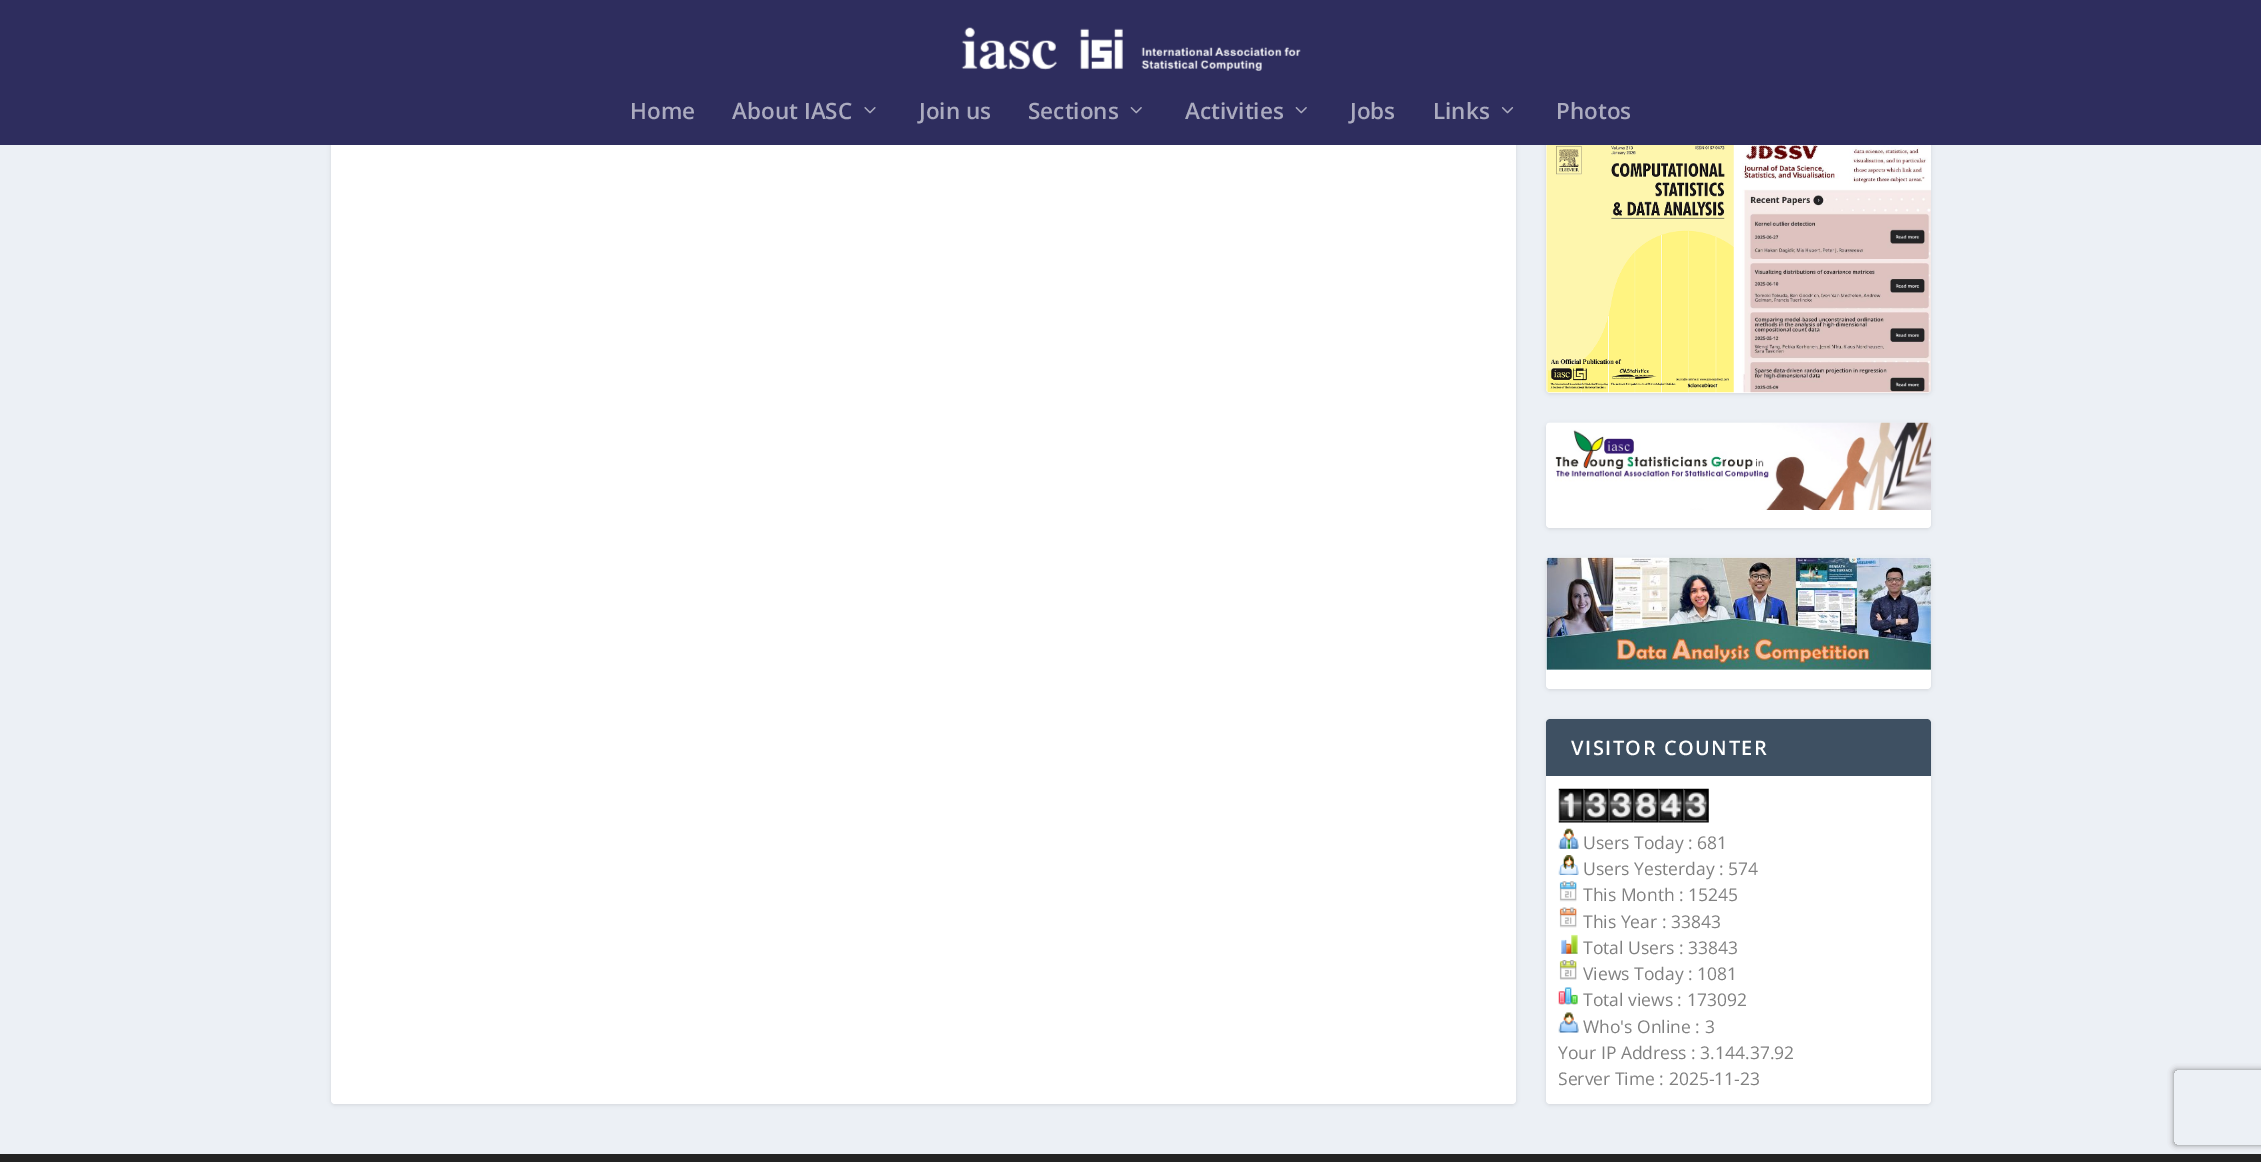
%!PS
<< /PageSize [2261 1162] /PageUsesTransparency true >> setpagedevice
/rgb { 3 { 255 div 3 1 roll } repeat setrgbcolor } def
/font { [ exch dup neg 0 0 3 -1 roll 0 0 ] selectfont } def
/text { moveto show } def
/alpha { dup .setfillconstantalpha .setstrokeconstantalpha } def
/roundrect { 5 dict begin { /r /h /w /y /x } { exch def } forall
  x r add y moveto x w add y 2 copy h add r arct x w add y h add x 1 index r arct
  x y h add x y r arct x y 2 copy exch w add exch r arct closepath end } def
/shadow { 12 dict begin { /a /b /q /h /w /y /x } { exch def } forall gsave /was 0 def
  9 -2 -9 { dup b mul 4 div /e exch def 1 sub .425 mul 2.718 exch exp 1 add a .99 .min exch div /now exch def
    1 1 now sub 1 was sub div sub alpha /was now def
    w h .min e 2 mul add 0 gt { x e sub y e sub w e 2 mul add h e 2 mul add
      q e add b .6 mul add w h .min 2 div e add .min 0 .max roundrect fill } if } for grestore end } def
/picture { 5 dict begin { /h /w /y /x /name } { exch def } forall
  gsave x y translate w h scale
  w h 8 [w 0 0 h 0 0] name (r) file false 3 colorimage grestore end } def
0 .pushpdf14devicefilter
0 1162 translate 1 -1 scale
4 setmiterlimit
236 240 245 rgb
0 0 2261 1162 rectfill
0 0 0 rgb
331 -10 1185 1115 4 2 0.1 shadow
255 255 255 rgb
331 -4 1185 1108 4 roundrect fill
0 0 0 rgb
1546 138 385 256 4 2 0.1 shadow
255 255 255 rgb
1546 136 385 257 4 roundrect fill
46 45 94 rgb
0 0 2261 145 rectfill
(img_01.rgb) 961 27 340 44 picture
(img_02.rgb) 864 107 12 7 picture
(img_03.rgb) 1130 107 12 7 picture
(img_03.rgb) 1295 107 12 7 picture
(img_04.rgb) 1501 107 13 7 picture
(img_05.rgb) 1546 145 188 248 picture
(img_06.rgb) 1742 145 189 248 picture
0 0 0 rgb
1546 424 385 105 4 2 0.1 shadow
255 255 255 rgb
1546 423 385 105 4 roundrect fill
(img_07.rgb) 1546 422 386 88 picture
0 0 0 rgb
1546 559 385 131 4 2 0.1 shadow
255 255 255 rgb
1546 558 385 131 4 roundrect fill
(img_08.rgb) 1546 557 386 113 picture
0 0 0 rgb
1546 720 385 385 4 2 0.1 shadow
255 255 255 rgb
1546 719 385 385 4 roundrect fill
62 80 98 rgb
1550 719 moveto 377 0 rlineto 2 0 4 2 4 4 rcurveto 0 53 rlineto -385 0 rlineto 0 -53 rlineto 0 -2 2 -4 4 -4 rcurveto closepath fill
(img_09.rgb) 1558 788 26 35 picture
(img_10.rgb) 1583 788 26 35 picture
(img_11.rgb) 1608 788 26 35 picture
(img_12.rgb) 1633 788 26 35 picture
(img_13.rgb) 1658 788 26 35 picture
(img_10.rgb) 1683 788 26 35 picture
(img_14.rgb) 1558 828 21 21 picture
(img_15.rgb) 1558 855 21 20 picture
(img_16.rgb) 1559 881 18 21 picture
(img_17.rgb) 1559 907 18 21 picture
(img_18.rgb) 1561 934 17 20 picture
(img_19.rgb) 1559 960 18 20 picture
(img_20.rgb) 1558 987 20 18 picture
(img_21.rgb) 1558 1012 21 21 picture
35 35 35 rgb
0 1154 2261 8 rectfill
gsave
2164 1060 moveto 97 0 rlineto 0 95 rlineto -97 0 rlineto closepath 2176.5 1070 moveto 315 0 rlineto 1.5 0 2.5 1 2.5 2.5 rcurveto 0 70 rlineto 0 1.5 -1 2.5 -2.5 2.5 rcurveto -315 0 rlineto -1.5 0 -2.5 -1 -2.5 -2.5 rcurveto 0 -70 rlineto 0 -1.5 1 -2.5 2.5 -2.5 rcurveto closepath eoclip newpath
128 128 128 rgb
2174 1070 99 75 2.5 3 1 shadow
grestore
/OpenSans-SemiBold 22.5 font
171 171 191 rgb
(Home) 630 119 text
(About IASC) 732 119 text
(Join us) 919 119 text
(Sections) 1028 119 text
(Activities) 1185 119 text
(Jobs) 1350 119 text
(Links) 1433 119 text
(Photos) 1556 119 text
/OpenSans-SemiBold 20 font
255 255 255 rgb
1571 755 moveto 1.5 0 (VISITOR COUNTER) ashow
/OpenSans-Regular 17.5 font
128 128 128 rgb
(Users Today : 681) 1583 849 text
(Users Yesterday : 574) 1583 875 text
(This Month : 15245) 1583 901 text
(This Year : 33843) 1583 928 text
(Total Users : 33843) 1583 954 text
(Views Today : 1081) 1583 980 text
(Total views : 173092) 1583 1006 text
(Who's Online : 3) 1583 1033 text
(Your IP Address : 3.144.37.92) 1558 1059 text
(Server Time : 2025-11-23) 1558 1085 text
.poppdf14devicefilter showpage
